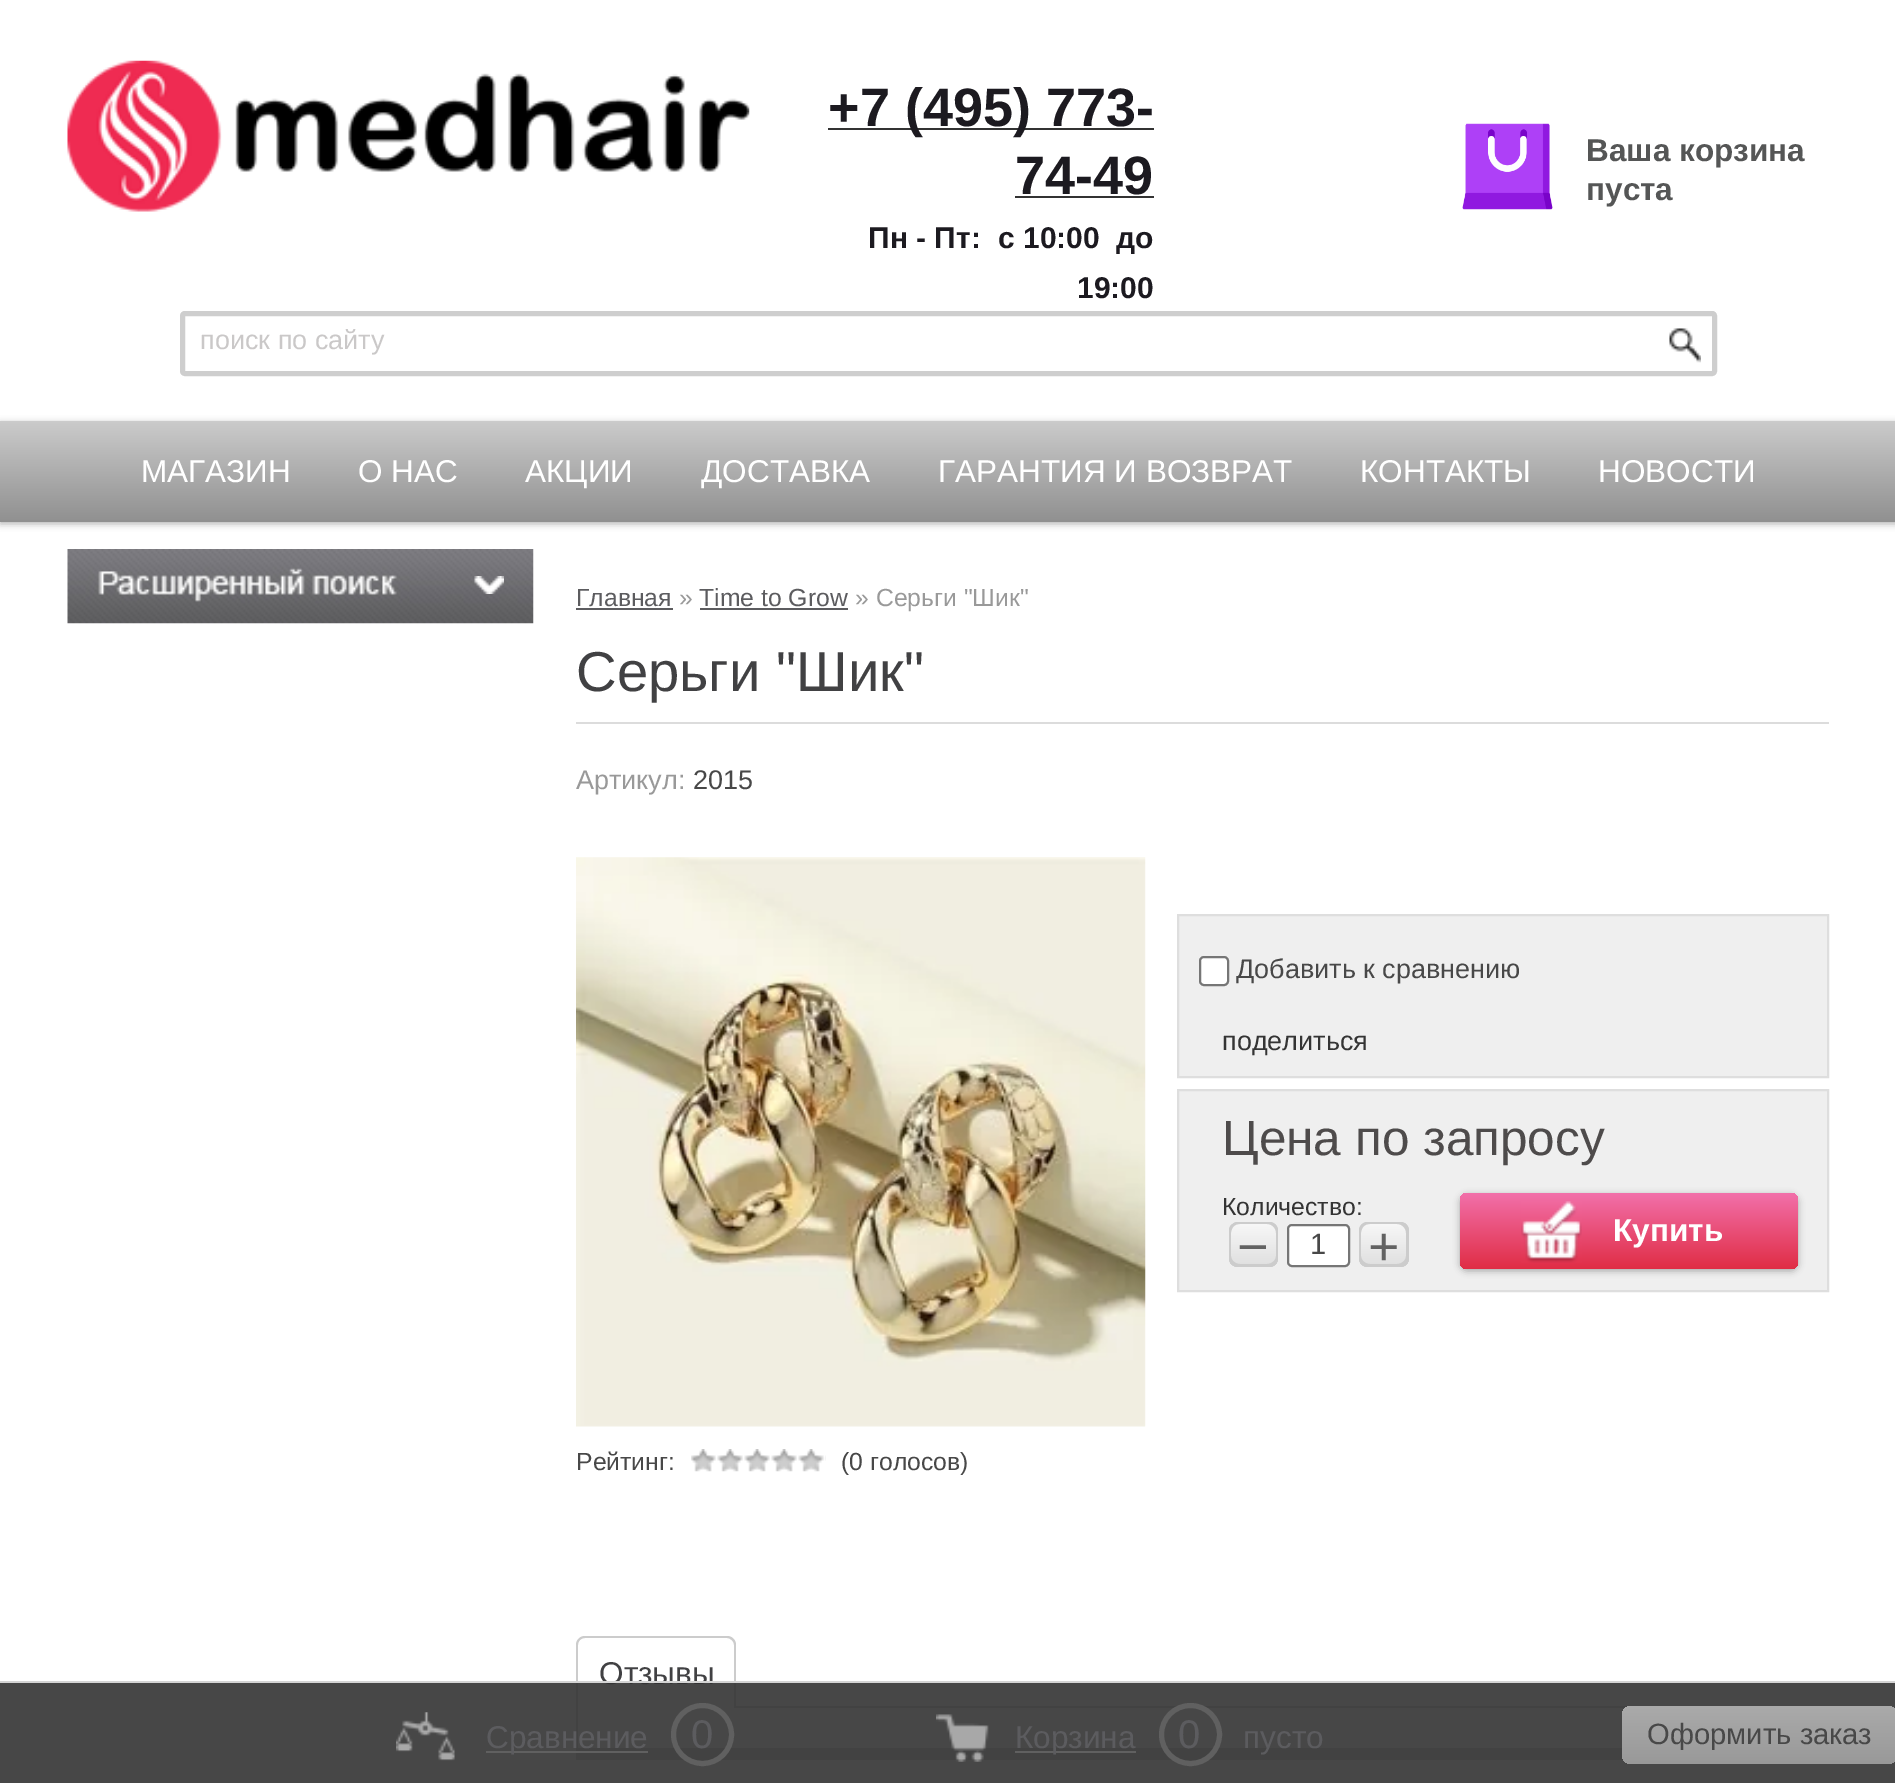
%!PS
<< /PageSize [1895 1783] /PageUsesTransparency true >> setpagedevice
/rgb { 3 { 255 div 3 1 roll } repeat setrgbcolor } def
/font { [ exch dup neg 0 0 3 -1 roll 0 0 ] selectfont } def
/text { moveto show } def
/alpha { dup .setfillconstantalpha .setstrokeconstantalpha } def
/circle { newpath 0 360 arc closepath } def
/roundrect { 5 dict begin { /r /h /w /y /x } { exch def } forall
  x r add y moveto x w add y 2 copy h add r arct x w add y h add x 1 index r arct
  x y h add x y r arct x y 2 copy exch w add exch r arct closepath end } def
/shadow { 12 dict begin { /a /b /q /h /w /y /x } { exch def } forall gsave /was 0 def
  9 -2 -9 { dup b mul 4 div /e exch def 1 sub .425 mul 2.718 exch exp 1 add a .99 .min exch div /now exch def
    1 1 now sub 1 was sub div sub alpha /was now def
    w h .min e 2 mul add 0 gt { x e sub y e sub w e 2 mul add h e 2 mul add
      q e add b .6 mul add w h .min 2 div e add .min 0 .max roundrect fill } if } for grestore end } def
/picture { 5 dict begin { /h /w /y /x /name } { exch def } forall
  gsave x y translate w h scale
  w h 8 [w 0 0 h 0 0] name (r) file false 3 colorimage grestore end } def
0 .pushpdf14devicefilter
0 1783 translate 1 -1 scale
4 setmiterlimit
255 255 255 rgb
0 0 1895 1783 rectfill
(img_01.rgb) 67 60 683 152 picture
51 51 51 rgb
828 128 326 2 rectfill
1015 196 139 2 rectfill
(img_02.rgb) 1462 123 91 87 picture
206 206 206 rgb
5 setlinewidth
182.5 313.5 1532 60 2.5 roundrect stroke
(img_03.rgb) 1669 328 32 35 picture
0 0 0 rgb
0 423 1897 101 0 3.5 0.28 shadow
gsave 0 421 moveto 1895 0 rlineto 0 101 rlineto -1895 0 rlineto closepath clip newpath
<< /ShadingType 2 /ColorSpace /DeviceRGB /Coords [948 522 948 421] /Extend [true true] /Function << /FunctionType 2 /Domain [0 1] /C0 [0.565 0.565 0.565] /C1 [0.796 0.796 0.796] /N 1 >> >> shfill grestore
(img_04.rgb) 67 549 467 75 picture
(img_05.rgb) 474 576 30 18 picture
92 92 95 rgb
576 608 97 2 rectfill
700 608 148 2 rectfill
220 220 220 rgb
576 722 1253 2 rectfill
239 239 239 rgb
1178 915 moveto 650 0 rlineto 0 162 rlineto -650 0 rlineto closepath gsave fill grestore
222 222 222 rgb
2 setlinewidth
stroke
255 255 255 rgb
1200 957 28 28 4 roundrect gsave fill grestore
118 118 118 rgb
stroke
239 239 239 rgb
1178 1090 moveto 650 0 rlineto 0 201 rlineto -650 0 rlineto closepath gsave fill grestore
222 222 222 rgb
stroke
gsave 1229 1222 49 45 9 roundrect clip newpath
<< /ShadingType 2 /ColorSpace /DeviceRGB /Coords [1253 1222 1253 1267] /Extend [true true] /Function << /FunctionType 2 /Domain [0 1] /C0 [0.973 0.973 0.973] /C1 [0.875 0.875 0.875] /N 1 >> >> shfill grestore
204 204 204 rgb
1232 1224 moveto -2 2 -3 4 -3 7 rcurveto 0 27 rlineto 0 5 4 9 9 9 rcurveto 31 0 rlineto 4 0 7 -2 8 -5 rcurveto -1 1 -4 2 -6 2 rcurveto -31 0 rlineto -5 0 -9 -4 -9 -8 rcurveto 0 -28 rlineto 0 -1 0 -3 1 -4 rcurveto closepath fill
1235 1224 moveto 32 0 rlineto 5 0 9 4 9 9 rcurveto 0 27 rlineto 0 2 -1 4 -2 5 rcurveto 3 -1 4 -4 4 -7 rcurveto 0 -27 rlineto 0 -5 -4 -9 -9 -9 rcurveto -31 0 rlineto -2 0 -5 1 -6 3 rcurveto closepath fill
1230 1263 moveto 2 2 5 4 8 4 rcurveto 31 0 rlineto 5 0 9 -4 9 -9 rcurveto 0 -27 rlineto 0 -3 -1 -5 -3 -7 rcurveto 1 1 1 3 1 4 rcurveto 0 28 rlineto 0 4 -4 8 -9 8 rcurveto -32 0 rlineto -2 0 -3 0 -5 -1 rcurveto closepath fill
1240 1224 moveto 31 0 rlineto 2 0 4 1 5 2 rcurveto -1 -3 -4 -4 -7 -4 rcurveto -31 0 rlineto -5 0 -9 4 -9 9 rcurveto 0 27 rlineto 0 3 1 6 4 7 rcurveto -3 -4 -2 -14 -2 -19 rcurveto 0 -7 -3 -22 9 -22 rcurveto closepath fill
255 255 255 rgb
1288 1225 61 41 4 roundrect gsave fill grestore
118 118 118 rgb
stroke
gsave 1359 1222 50 45 9 roundrect clip newpath
<< /ShadingType 2 /ColorSpace /DeviceRGB /Coords [1384 1222 1384 1267] /Extend [true true] /Function << /FunctionType 2 /Domain [0 1] /C0 [0.973 0.973 0.973] /C1 [0.875 0.875 0.875] /N 1 >> >> shfill grestore
204 204 204 rgb
1362 1224 moveto -2 2 -3 4 -3 7 rcurveto 0 27 rlineto 0 5 4 9 9 9 rcurveto 32 0 rlineto 4 0 7 -2 8 -5 rcurveto -1 1 -4 2 -6 2 rcurveto -32 0 rlineto -5 0 -9 -4 -9 -8 rcurveto 0 -28 rlineto 0 -1 0 -3 1 -4 rcurveto closepath fill
1366 1224 moveto 31 0 rlineto 5 0 9 4 9 9 rcurveto 0 27 rlineto 0 2 -1 5 -3 6 rcurveto 4 -1 6 -4 6 -8 rcurveto 0 -27 rlineto 0 -5 -4 -9 -9 -9 rcurveto -32 0 rlineto -3 0 -6 1 -7 4 rcurveto 1 -1 3 -2 5 -2 rcurveto closepath fill
1360 1262 moveto 1 3 4 5 8 5 rcurveto 32 0 rlineto 5 0 9 -4 9 -9 rcurveto 0 -27 rlineto 0 -4 -2 -7 -5 -8 rcurveto 1 1 2 3 2 5 rcurveto 0 28 rlineto 0 4 -4 8 -9 8 rcurveto -31 0 rlineto -2 0 -5 -1 -6 -2 rcurveto closepath fill
1370 1224 moveto 32 0 rlineto 2 0 4 1 5 2 rcurveto -1 -3 -4 -4 -7 -4 rcurveto -32 0 rlineto -5 0 -9 4 -9 9 rcurveto 0 27 rlineto 0 3 1 6 4 7 rcurveto -3 -4 -2 -14 -2 -19 rcurveto 0 -7 -3 -22 9 -22 rcurveto closepath fill
0 0 0 rgb
1460 1195 338 76 7 3.5 0.28 shadow
gsave 1460 1193 338 76 7 roundrect clip newpath
<< /ShadingType 2 /ColorSpace /DeviceRGB /Coords [1629 1193 1629 1269] /Extend [true true] /Function << /FunctionType 2 /Domain [0 1] /C0 [0.949 0.439 0.667] /C1 [0.878 0.176 0.271] /N 1 >> >> shfill grestore
(img_06.rgb) 1521 1201 61 62 picture
(img_07.rgb) 576 857 570 570 picture
(img_08.rgb) 691 1449 135 23 picture
204 204 204 rgb
576 1706 2 54 rectfill
255 255 255 rgb
585 1636 moveto 142 0 rlineto 5 0 9 4 9 9 rcurveto 0 63 rlineto -160 0 rlineto 0 -63 rlineto 0 -5 4 -9 9 -9 rcurveto closepath fill
204 204 204 rgb
585 1636 moveto 142 0 rlineto 5 0 9 4 9 9 rcurveto 0 63 rlineto -160 0 rlineto 0 -63 rlineto 0 -5 4 -9 9 -9 rcurveto closepath 585 1638 moveto 142 0 rlineto 3 0 7 3 7 7 rcurveto 0 63 rlineto -156 0 rlineto 0 -63 rlineto 0 -4 3 -7 7 -7 rcurveto closepath eofill
736 1706 895 2 rectfill
578 1748 1046 12 rectfill
/LiberationSans-Bold 54 font
28 26 32 rgb
(+7 \(495\) 773-) 828 126 text
(74-49) 1015 194 text
/LiberationSans-Bold 30 font
(Пн - Пт:) 868 248 text
(с 10:00  до) 998 248 text
(19:00) 1077 298 text
/LiberationSans-Bold 31.5 font
85 86 86 rgb
(Ваша корзина) 1586 161 text
(пуста) 1586 200 text
/LiberationSans-Regular 27 font
202 200 200 rgb
(поиск по сайту) 200 349 text
/LiberationSans-Regular 31.5 font
255 255 255 rgb
(МАГАЗИН) 141 482 text
(О НАС) 358 482 text
(АКЦИИ) 525 482 text
(ДОСТАВКА) 701 482 text
(ГАРАНТИЯ И ВОЗВРАТ) 938 482 text
(КОНТАКТЫ) 1360 482 text
(НОВОСТИ) 1598 482 text
/LiberationSans-Regular 24.75 font
92 92 95 rgb
(Главная) 576 606 text
153 153 153 rgb
(») 679 606 text
92 92 95 rgb
(Time to Grow) 699 606 text
153 153 153 rgb
(» Серьги "Шик") 855 606 text
/LiberationSans-Regular 56.25 font
65 65 67 rgb
(Серьги "Шик") 576 691 text
/LiberationSans-Regular 27 font
153 153 153 rgb
(Артикул:) 576 789 text
72 72 72 rgb
(2015) 693 789 text
(Добавить к сравнению) 1236 978 text
52 52 52 rgb
(поделиться) 1222 1050 text
/LiberationSans-Regular 49.5 font
78 75 75 rgb
(Цена по запросу) 1222 1155 text
/LiberationSans-Regular 24.75 font
52 52 52 rgb
(Количество:) 1222 1215 text
/LiberationSans-Regular 54 font
98 98 98 rgb
(−) 1237 1265 text
/LiberationSans-Regular 29.25 font
72 72 72 rgb
(1) 1310 1254 text
/LiberationSans-Regular 54 font
98 98 98 rgb
(+) 1368 1265 text
/LiberationSans-Bold 31.5 font
255 255 255 rgb
(Купить) 1613 1241 text
/LiberationSans-Regular 24.75 font
72 72 72 rgb
(Рейтинг:) 576 1470 text
(\(0 голосов\)) 841 1470 text
/LiberationSans-Regular 31.5 font
65 65 67 rgb
(Отзывы) 599 1684 text
0.9 alpha
51 51 51 rgb
0 1683 1895 100 rectfill
1 alpha
212 212 212 rgb
0 1681 1895 2 rectfill
(img_09.rgb) 396 1712 59 49 picture
96 96 96 rgb
486 1751 162 2 rectfill
92 92 95 rgb
(Сравнение) 486 1748 text
96 96 96 rgb
5 setlinewidth
702.5 1734.5 29 circle stroke
/LiberationSans-Regular 40 font
92 92 95 rgb
(0) 691 1748 text
(img_10.rgb) 936 1714 53 48 picture
96 96 96 rgb
1015 1751 121 2 rectfill
/LiberationSans-Regular 31.5 font
92 92 95 rgb
(Корзина) 1015 1748 text
96 96 96 rgb
1190.5 1734.5 29 circle stroke
/LiberationSans-Regular 40 font
92 92 95 rgb
(0) 1178 1748 text
/LiberationSans-Regular 31.5 font
(пусто) 1243 1748 text
gsave 1622 1706 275 58 9 roundrect clip newpath
<< /ShadingType 2 /ColorSpace /DeviceRGB /Coords [1760 1706 1760 1764] /Extend [true true] /Function << /FunctionType 2 /Domain [0 1] /C0 [0.667 0.667 0.667] /C1 [0.6 0.6 0.6] /N 1 >> >> shfill grestore
/LiberationSans-Regular 29.25 font
72 72 72 rgb
(Оформить заказ) 1647 1744 text
.poppdf14devicefilter showpage
